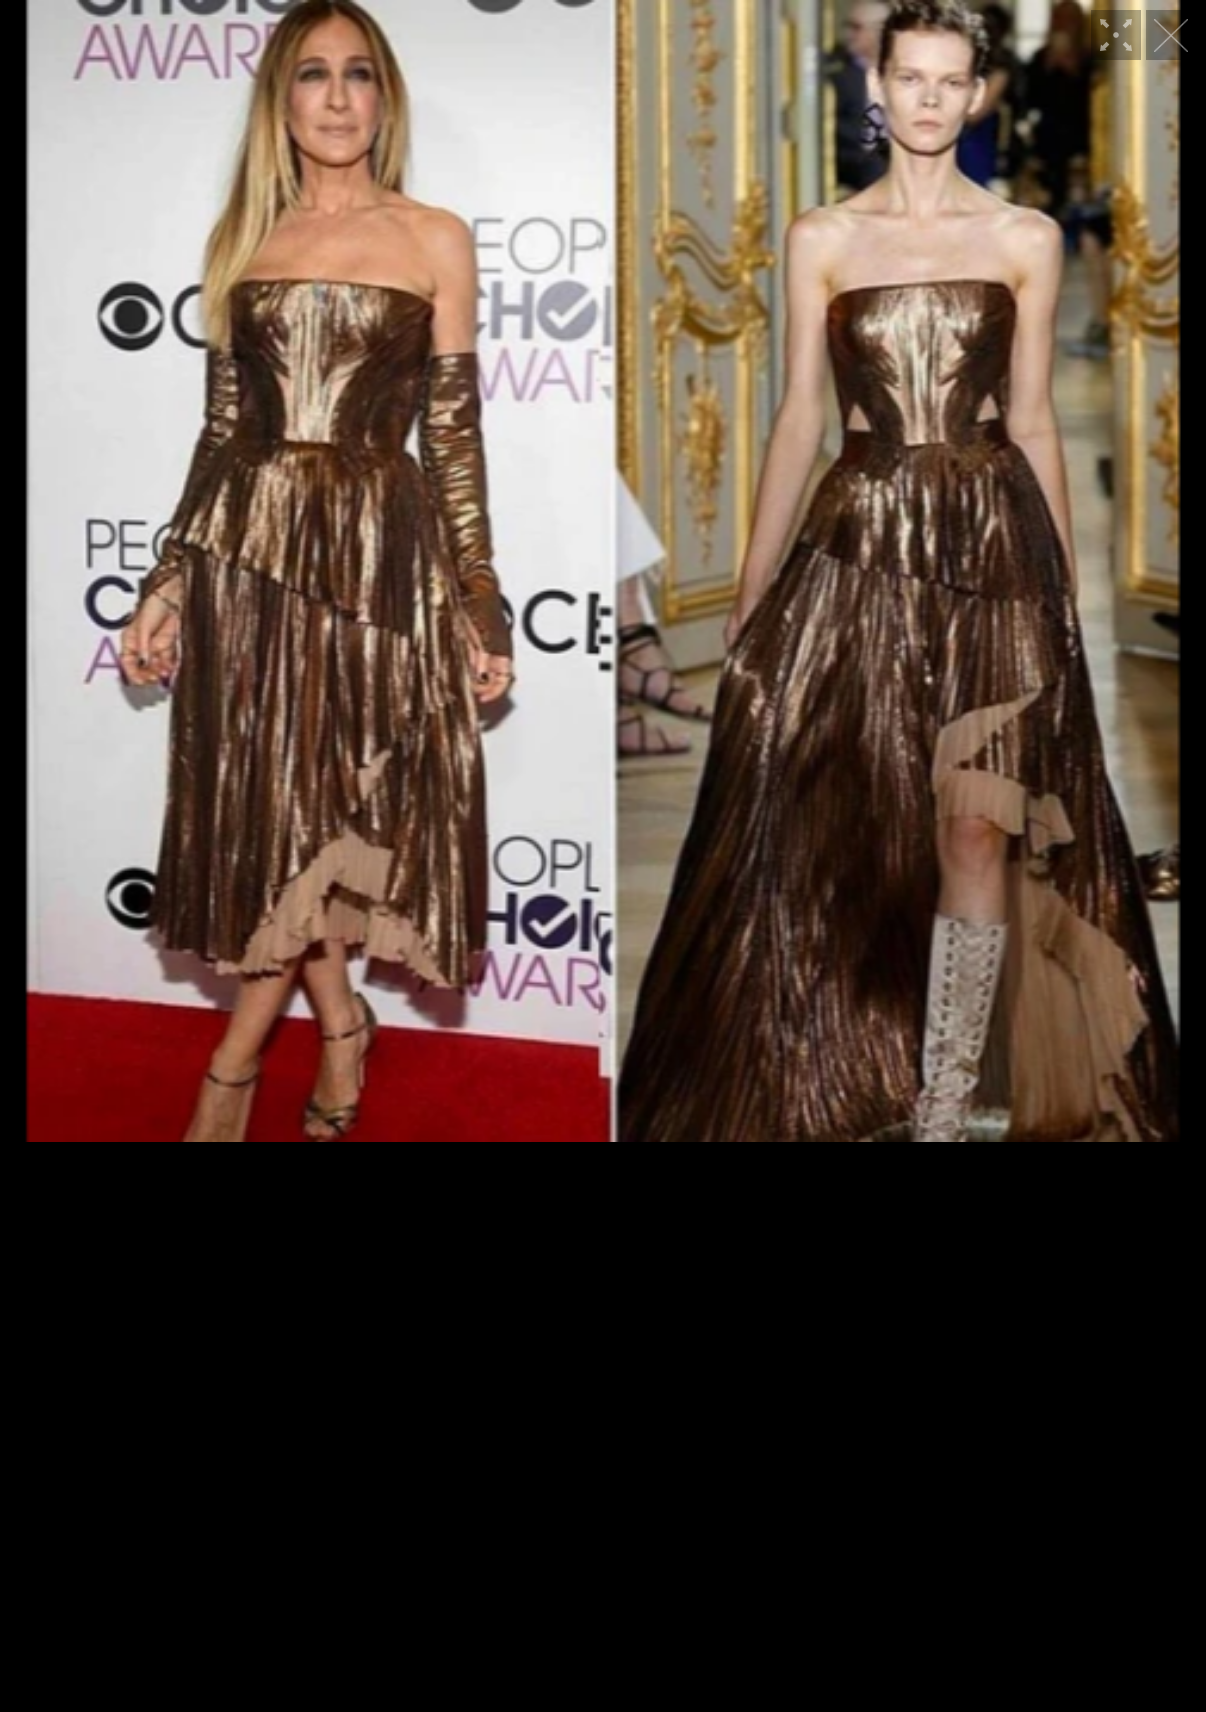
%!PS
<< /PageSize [1206 1712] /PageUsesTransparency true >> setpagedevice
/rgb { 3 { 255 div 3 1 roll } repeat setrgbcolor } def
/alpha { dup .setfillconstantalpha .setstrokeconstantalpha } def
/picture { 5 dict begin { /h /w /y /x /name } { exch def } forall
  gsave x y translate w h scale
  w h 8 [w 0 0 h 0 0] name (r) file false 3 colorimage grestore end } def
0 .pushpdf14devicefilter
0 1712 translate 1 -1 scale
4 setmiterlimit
0 0 0 rgb
0 0 1206 1712 rectfill
(img_01.rgb) 25 0 1156 1142 picture
0.3 alpha
1091 10 50 50 rectfill
1 alpha
(img_02.rgb) 1100 19 32 32 picture
0.3 alpha
1146 10 35 50 rectfill
1 alpha
(img_03.rgb) 1154 19 34 33 picture
.poppdf14devicefilter showpage
